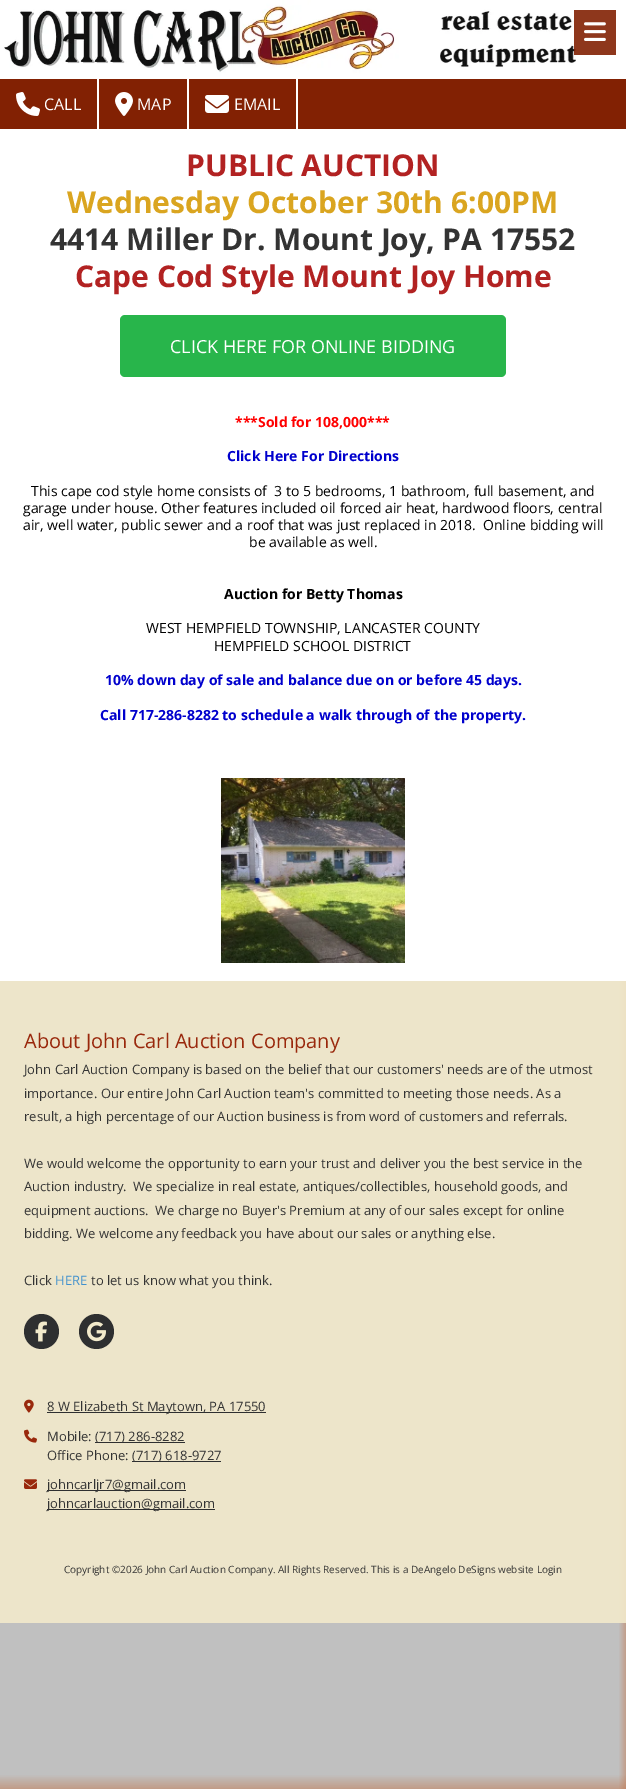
%!PS
<< /PageSize [626 1789] /PageUsesTransparency true >> setpagedevice
/rgb { 3 { 255 div 3 1 roll } repeat setrgbcolor } def
/font { [ exch dup neg 0 0 3 -1 roll 0 0 ] selectfont } def
/text { moveto show } def
/alpha { dup .setfillconstantalpha .setstrokeconstantalpha } def
/circle { newpath 0 360 arc closepath } def
/roundrect { 5 dict begin { /r /h /w /y /x } { exch def } forall
  x r add y moveto x w add y 2 copy h add r arct x w add y h add x 1 index r arct
  x y h add x y r arct x y 2 copy exch w add exch r arct closepath end } def
/picture { 5 dict begin { /h /w /y /x /name } { exch def } forall
  gsave x y translate w h scale
  w h 8 [w 0 0 h 0 0] name (r) file false 3 colorimage grestore end } def
0 .pushpdf14devicefilter
0 1789 translate 1 -1 scale
4 setmiterlimit
194 117 75 rgb
0 0 626 1789 rectfill
(img_01.rgb) 0 0 626 79 picture
0.9 alpha
130 33 3 rgb
574 10 42 45 rectfill
1 alpha
(img_02.rgb) 584 22 22 19 picture
0 79 626 50 rectfill
255 255 255 rgb
97 79 2 50 rectfill
(img_03.rgb) 16 92 24 24 picture
187 79 2 50 rectfill
(img_04.rgb) 115 92 18 24 picture
296 79 2 50 rectfill
(img_05.rgb) 205 95 24 18 picture
0 129 626 852 rectfill
40 181 75 rgb
120 315 386 62 5 roundrect fill
(img_06.rgb) 221 778 184 185 picture
(img_12.rgb) 0 981 626 808 picture
0.89 alpha
242 234 203 rgb
0 981 626 642 rectfill
1 alpha
46 47 48 rgb
41.5 1331.5 17.5 circle fill
(img_07.rgb) 35 1321 12 21 picture
96.5 1331.5 17.5 circle fill
(img_08.rgb) 87 1321 19 21 picture
(img_09.rgb) 24 1399 10 14 picture
47 1412 219 1 rectfill
(img_10.rgb) 24 1429 13 14 picture
95 1442 90 1 rectfill
132 1461 89 1 rectfill
(img_11.rgb) 24 1479 13 10 picture
47 1490 139 1 rectfill
47 1509 168 1 rectfill
/OpenSans-Regular 16 font
255 255 255 rgb
(CALL) 44 110 text
(MAP) 137 110 text
(EMAIL) 234 110 text
/OpenSans-Bold 30 font
178 34 34 rgb
(PUBLIC AUCTION) 186 176 text
218 165 32 rgb
(Wednesday October 30th 6:00PM) 67 213 text
51 51 51 rgb
(4414 Miller Dr. Mount Joy, PA 17552) 50 250 text
178 34 34 rgb
(Cape Cod Style Mount Joy Home) 75 287 text
/OpenSans-Regular 18 font
255 255 255 rgb
(CLICK HERE FOR ONLINE BIDDING) 170 353 text
/OpenSans-Bold 14 font
255 0 0 rgb
(***Sold for 108,000***) 235 427 text
0 0 205 rgb
(Click Here For Directions) 227 461 text
/OpenSans-Regular 14 font
0 0 0 rgb
(This cape cod style home consists of  3 to 5 bedrooms, 1 bathroom, full basement, and) 31 496 text
(garage under house. Other features included oil forced air heat, hardwood floors, central) 23 513 text
(air, well water, public sewer and a roof that was just replaced in 2018.  Online bidding will) 23 530 text
(be available as well.) 249 547 text
/OpenSans-Bold 14 font
(Auction for Betty Thomas) 224 599 text
/OpenSans-Regular 14 font
(WEST HEMPFIELD TOWNSHIP, LANCASTER COUNTY) 146 633 text
(HEMPFIELD SCHOOL DISTRICT) 214 651 text
/OpenSans-Bold 14 font
0 0 205 rgb
(10% down day of sale and balance due on or before 45 days.) 105 685 text
(Call 717-286-8282 to schedule a walk through of the property.) 100 720 text
/OpenSans-Regular 20 font
153 40 12 rgb
(About John Carl Auction Company) 24 1048 text
/OpenSans-Regular 13 font
51 51 51 rgb
(John Carl Auction Company is based on the belief that our customers' needs are of the utmost) 24 1074 text
(importance. Our entire John Carl Auction team's committed to meeting those needs. As a) 24 1098 text
(result, a high percentage of our Auction business is from word of customers and referrals.) 24 1121 text
(We would welcome the opportunity to earn your trust and deliver you the best service in the) 24 1168 text
(Auction industry.  We specialize in real estate, antiques/collectibles, household goods, and) 24 1191 text
(equipment auctions.  We charge no Buyer's Premium at any of our sales except for online) 24 1215 text
(bidding. We welcome any feedback you have about our sales or anything else.) 24 1238 text
(Click) 24 1285 text
64 144 205 rgb
(HERE) 55 1285 text
51 51 51 rgb
(to let us know what you think.) 91 1285 text
(8 W Elizabeth St Maytown, PA 17550) 47 1411 text
(Mobile:) 47 1441 text
(\(717\) 286-8282) 95 1441 text
(Office Phone:) 47 1460 text
(\(717\) 618-9727) 132 1460 text
(johncarljr7@gmail.com) 47 1489 text
(johncarlauction@gmail.com) 47 1508 text
/OpenSans-Regular 10 font
(Copyright ©2026 John Carl Auction Company. All Rights Reserved. This is a DeAngelo DeSigns website Login) 64 1573 text
.poppdf14devicefilter showpage
